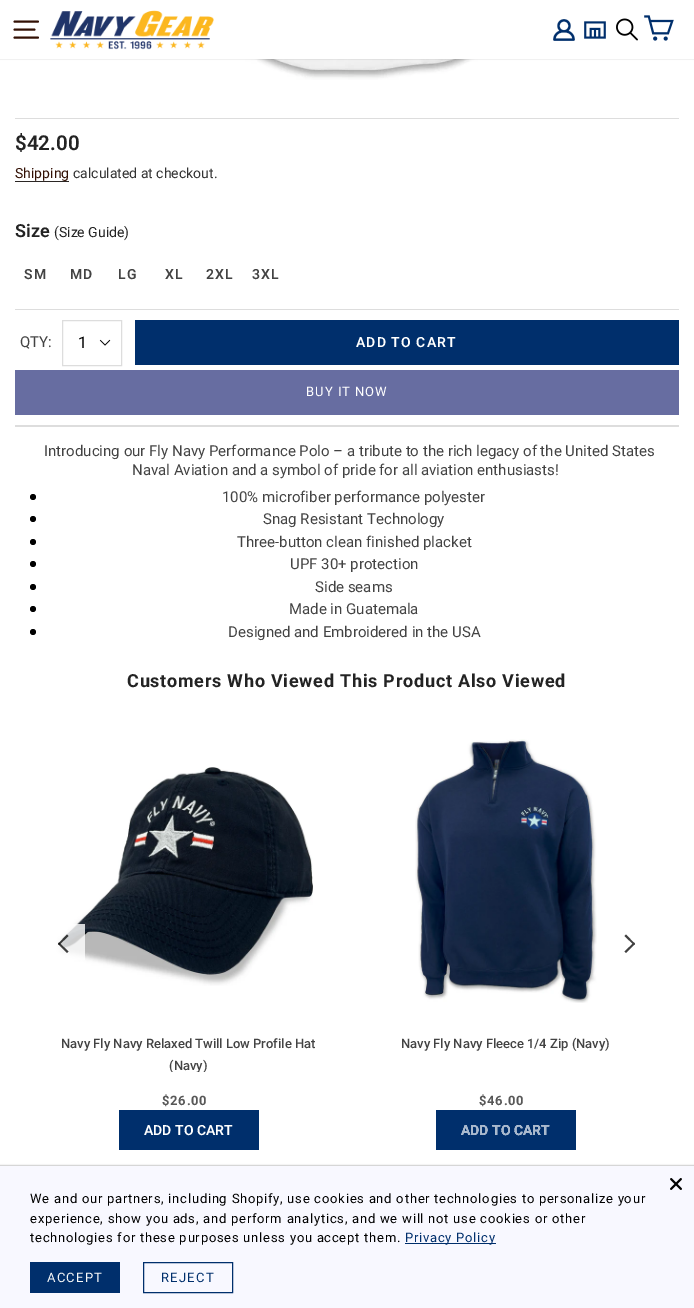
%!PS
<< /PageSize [694 1308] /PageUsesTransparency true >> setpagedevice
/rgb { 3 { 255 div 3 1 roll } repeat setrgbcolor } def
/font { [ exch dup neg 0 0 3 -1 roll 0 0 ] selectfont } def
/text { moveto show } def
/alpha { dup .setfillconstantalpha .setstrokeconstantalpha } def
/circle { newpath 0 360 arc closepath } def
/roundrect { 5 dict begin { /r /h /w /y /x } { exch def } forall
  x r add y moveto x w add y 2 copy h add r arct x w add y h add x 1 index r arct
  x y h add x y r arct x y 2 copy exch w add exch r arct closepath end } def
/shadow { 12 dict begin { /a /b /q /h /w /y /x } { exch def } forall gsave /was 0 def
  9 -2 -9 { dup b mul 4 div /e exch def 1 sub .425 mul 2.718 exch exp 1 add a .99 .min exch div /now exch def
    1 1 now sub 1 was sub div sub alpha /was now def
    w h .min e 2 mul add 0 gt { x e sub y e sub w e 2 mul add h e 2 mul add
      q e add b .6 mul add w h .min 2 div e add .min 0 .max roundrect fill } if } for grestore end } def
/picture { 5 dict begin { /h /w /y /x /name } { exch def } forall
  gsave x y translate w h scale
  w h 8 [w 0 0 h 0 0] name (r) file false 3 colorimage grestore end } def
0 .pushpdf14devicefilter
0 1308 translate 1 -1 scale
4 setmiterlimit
255 255 255 rgb
0 0 694 1308 rectfill
(img_06.rgb) 230 59 258 21 picture
0 0 0 rgb
0 0 694 59 0 0.5 0.2 shadow
255 255 255 rgb
0 0 694 59 rectfill
(img_01.rgb) 50 10 164 40 picture
50 16 4 rgb
1.9 setlinewidth
1 setlinecap
1 setlinejoin
14.5 21.5 moveto 23.5 0 rlineto 14.5 29.5 moveto 20 0 rlineto 14.5 37.5 moveto 23.5 0 rlineto stroke
(img_02.rgb) 553 19 22 22 picture
(img_03.rgb) 584 21 22 18 picture
(img_04.rgb) 616 18 22 23 picture
(img_05.rgb) 644 15 30 26 picture
221 221 221 rgb
15 118 664 1 rectfill
43 38 36 rgb
15 181 54 1 rectfill
221 221 221 rgb
15 309 664 1 rectfill
15 425 664 2 rectfill
(img_07.rgb) 99 339 12 7 picture
1 setlinewidth
0 setlinecap
0 setlinejoin
62.5 320.5 59 45 rectstroke
0 47 108 rgb
135 320 544 45 rectfill
103 109 161 rgb
15 370 664 45 rectfill
0 0 0 rgb
33 497 3 circle fill
33 519 3 circle fill
33 542 3 circle fill
33 564 3 circle fill
33 587 3 circle fill
33 609 3 circle fill
33 632 3 circle fill
(img_08.rgb) 56 767 257 219 picture
0.8 alpha
255 255 255 rgb
56 924 29 36 rectfill
0.75 alpha
0 0 0 rgb
67 953 moveto -9 -9 rlineto 1 -1.5 rlineto 9.5 9 rlineto closepath fill
59 945 moveto -1 -1 rlineto 9 -9.5 rlineto 1.5 1.5 rlineto closepath fill
1 alpha
64 64 64 rgb
626 934.5 moveto 9 9.5 rlineto -1 1 rlineto -9.5 -9 rlineto closepath fill
634 942.5 moveto 1 1.5 rlineto -9 9 rlineto -1.5 -1.5 rlineto closepath fill
0 47 108 rgb
119 1110 140 40 rectfill
(img_09.rgb) 415 739 182 264 picture
436 1110 140 40 rectfill
0 0 0 rgb
0 1166 694 142 0 1 0.5 shadow
248 248 255 rgb
0 1166 694 142 rectfill
(img_10.rgb) 670 1178 12 12 picture
0 47 108 rgb
405 1243 91 1 rectfill
30 1262 90 31 rectfill
143.5 1262.5 89 30 rectstroke
/Roboto-SemiBold 20.5 font
35 35 35 rgb
($42.00) 15 150 text
/Roboto-Regular 14 font
50 16 4 rgb
(Shipping) 15 178 text
51 51 51 rgb
(calculated at checkout.) 73 178 text
/Roboto-SemiBold 18 font
35 35 35 rgb
(Size) 15 237 text
/Roboto-Regular 14 font
(\(Size Guide\)) 54 237 text
/Roboto-SemiBold 14 font
67 67 67 rgb
24 279 moveto 1 0 (SM) ashow
70 279 moveto 1 0 (MD) ashow
118 279 moveto 1 0 (LG) ashow
165 279 moveto 1 0 (XL) ashow
206 279 moveto 1 0 (2XL) ashow
252 279 moveto 1 0 (3XL) ashow
/Roboto-Regular 15 font
(QTY:) 20 347 text
/Roboto-Regular 16 font
0 0 0 rgb
78 348 moveto 1 0 (1) ashow
/Roboto-SemiBold 14 font
255 255 255 rgb
356 347 moveto 1.1 0 (ADD TO CART) ashow
/Roboto-Regular 13 font
306 396 moveto 1 0 (BUY IT NOW) ashow
/Roboto-Regular 15 font
67 67 67 rgb
(Introducing our Fly Navy Performance Polo – a tribute to the rich legacy of the United States) 44 456 text
(Naval Aviation and a symbol of pride for all aviation enthusiasts!) 132 475 text
(100% microfiber performance polyester) 222 502 text
(Snag Resistant Technology) 263 524 text
(Three-button clean finished placket) 237 547 text
(UPF 30+ protection) 290 569 text
(Side seams) 315 592 text
(Made in Guatemala) 289 614 text
(Designed and Embroidered in the USA) 228 637 text
/Roboto-Bold 18 font
35 35 35 rgb
127 687 moveto 0.75 0 (Customers Who Viewed This Product Also Viewed) ashow
/Roboto-Medium 13 font
67 67 67 rgb
(Navy Fly Navy Relaxed Twill Low Profile Hat) 61 1048 text
gsave
46 1033 286 39 rectclip
(\(Navy\)) 169 1070 text
grestore
/Roboto-Bold 13 font
87 87 87 rgb
162 1105 moveto 0.75 0 ($26.00) ashow
/Roboto-SemiBold 14 font
255 255 255 rgb
(ADD TO CART) 144 1135 text
/Roboto-Medium 13 font
67 67 67 rgb
(Navy Fly Navy Fleece 1/4 Zip \(Navy\)) 401 1048 text
/Roboto-Bold 13 font
87 87 87 rgb
479 1105 moveto 0.75 0 ($46.00) ashow
/Roboto-SemiBold 14 font
255 255 255 rgb
(ADD TO CART) 461 1135 text
167 183 204 rgb
(ADD TO CART) 461 1135 text
/Roboto-Regular 13 font
0 0 0 rgb
30 1203 moveto 0.75 0 (We and our partners, including Shopify, use cookies and other technologies to personalize your) ashow
30 1223 moveto 0.75 0 (experience, show you ads, and perform analytics, and we will not use cookies or other) ashow
30 1242 moveto 0.75 0 (technologies for these purposes unless you accept them.) ashow
0 47 108 rgb
405 1242 moveto 0.75 0 (Privacy Policy) ashow
248 248 248 rgb
47 1282 moveto 1.25 0 (ACCEPT) ashow
0 47 108 rgb
161 1282 moveto 1.25 0 (REJECT) ashow
.poppdf14devicefilter showpage
